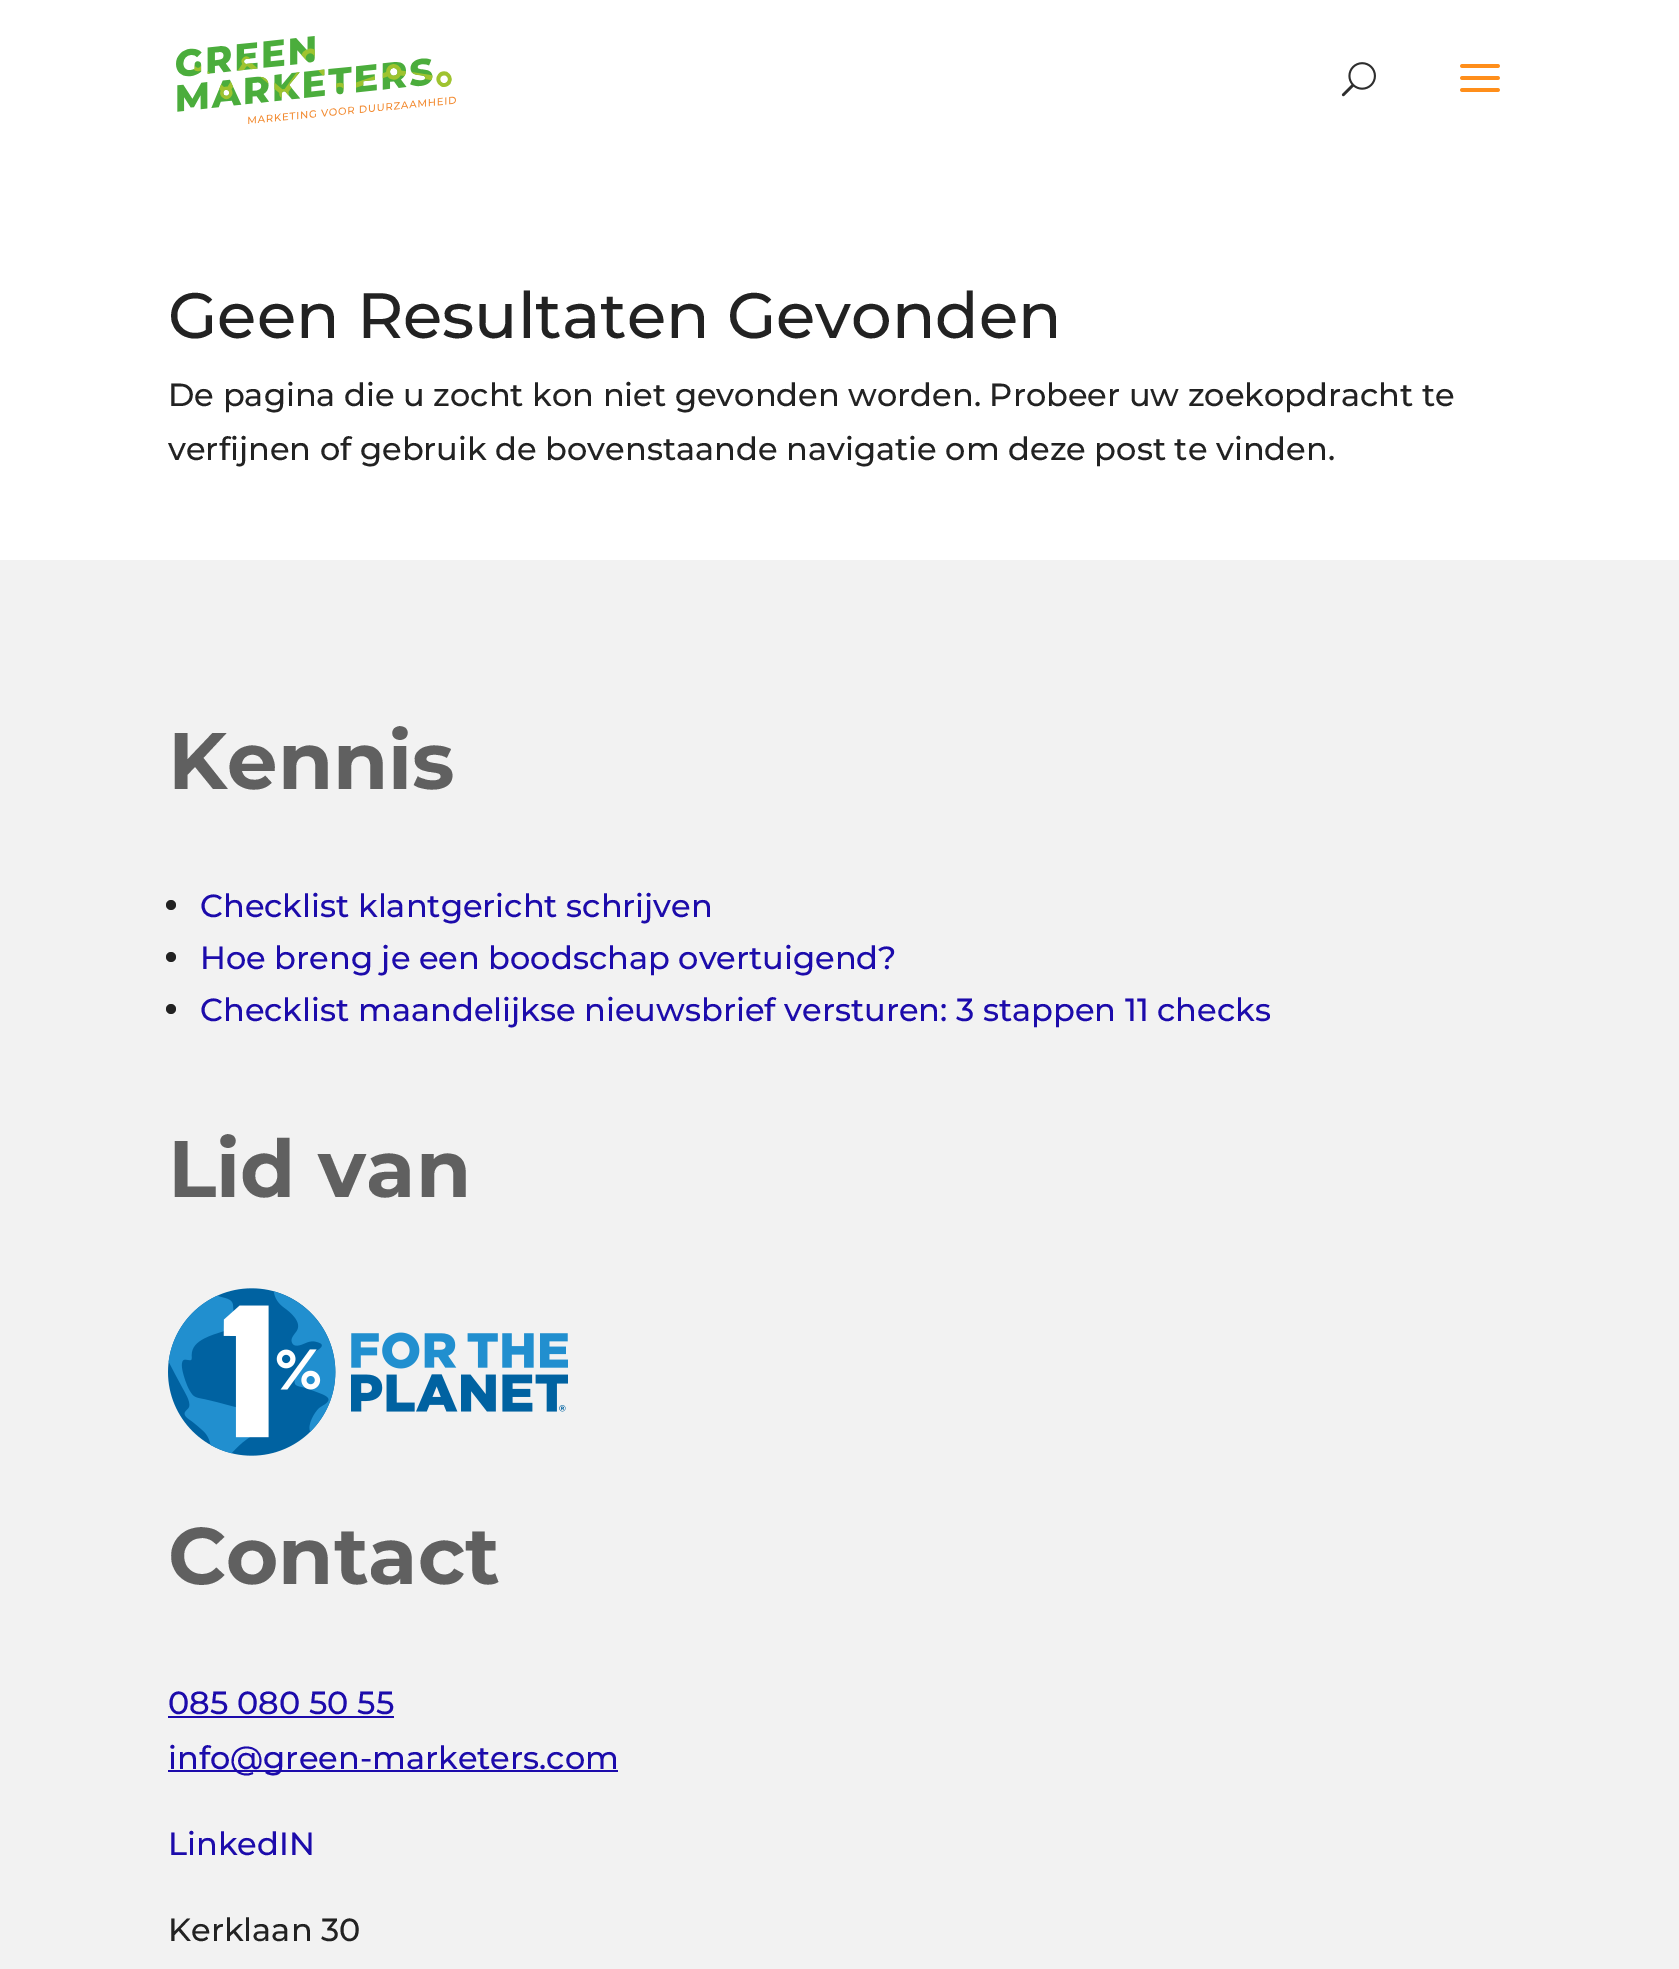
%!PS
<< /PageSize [1679 1969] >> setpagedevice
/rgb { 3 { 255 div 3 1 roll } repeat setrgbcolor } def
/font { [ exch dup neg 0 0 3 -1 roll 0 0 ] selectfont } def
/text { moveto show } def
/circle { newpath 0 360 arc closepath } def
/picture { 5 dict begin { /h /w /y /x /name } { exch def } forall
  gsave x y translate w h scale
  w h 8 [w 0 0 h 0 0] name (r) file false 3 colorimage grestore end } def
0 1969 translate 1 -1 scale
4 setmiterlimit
255 255 255 rgb
0 0 1679 1969 rectfill
(img_01.rgb) 176 36 280 88 picture
(img_02.rgb) 1341 62 35 35 picture
(img_03.rgb) 1460 64 40 28 picture
242 242 242 rgb
0 560 1679 1409 rectfill
34 34 34 rgb
171 905 5 circle fill
171 957 5 circle fill
171 1009 5 circle fill
(img_04.rgb) 168 1288 400 168 picture
28 11 171 rgb
168 1716 226 2 rectfill
168 1770 450 2 rectfill
/Montserrat-Medium 64 font
34 34 34 rgb
(Geen Resultaten Gevonden) 168 338 text
/Montserrat-Medium 32 font
(De pagina die u zocht kon niet gevonden worden. Probeer uw zoekopdracht te) 168 406 text
(verfijnen of gebruik de bovenstaande navigatie om deze post te vinden.) 168 460 text
/Montserrat-Bold 80 font
96 96 96 rgb
(Kennis) 168 789 text
/Montserrat-Medium 32 font
28 11 171 rgb
(Checklist klantgericht schrijven) 200 917 text
(Hoe breng je een boodschap overtuigend?) 200 969 text
(Checklist maandelijkse nieuwsbrief versturen: 3 stappen 11 checks) 200 1021 text
/Montserrat-Bold 80 font
96 96 96 rgb
(Lid van) 168 1197 text
(Contact) 168 1584 text
/Montserrat-Medium 32 font
28 11 171 rgb
(085 080 50 55) 168 1714 text
(info@green-marketers.com) 168 1769 text
(LinkedIN) 168 1855 text
34 34 34 rgb
(Kerklaan 30) 168 1941 text
showpage
